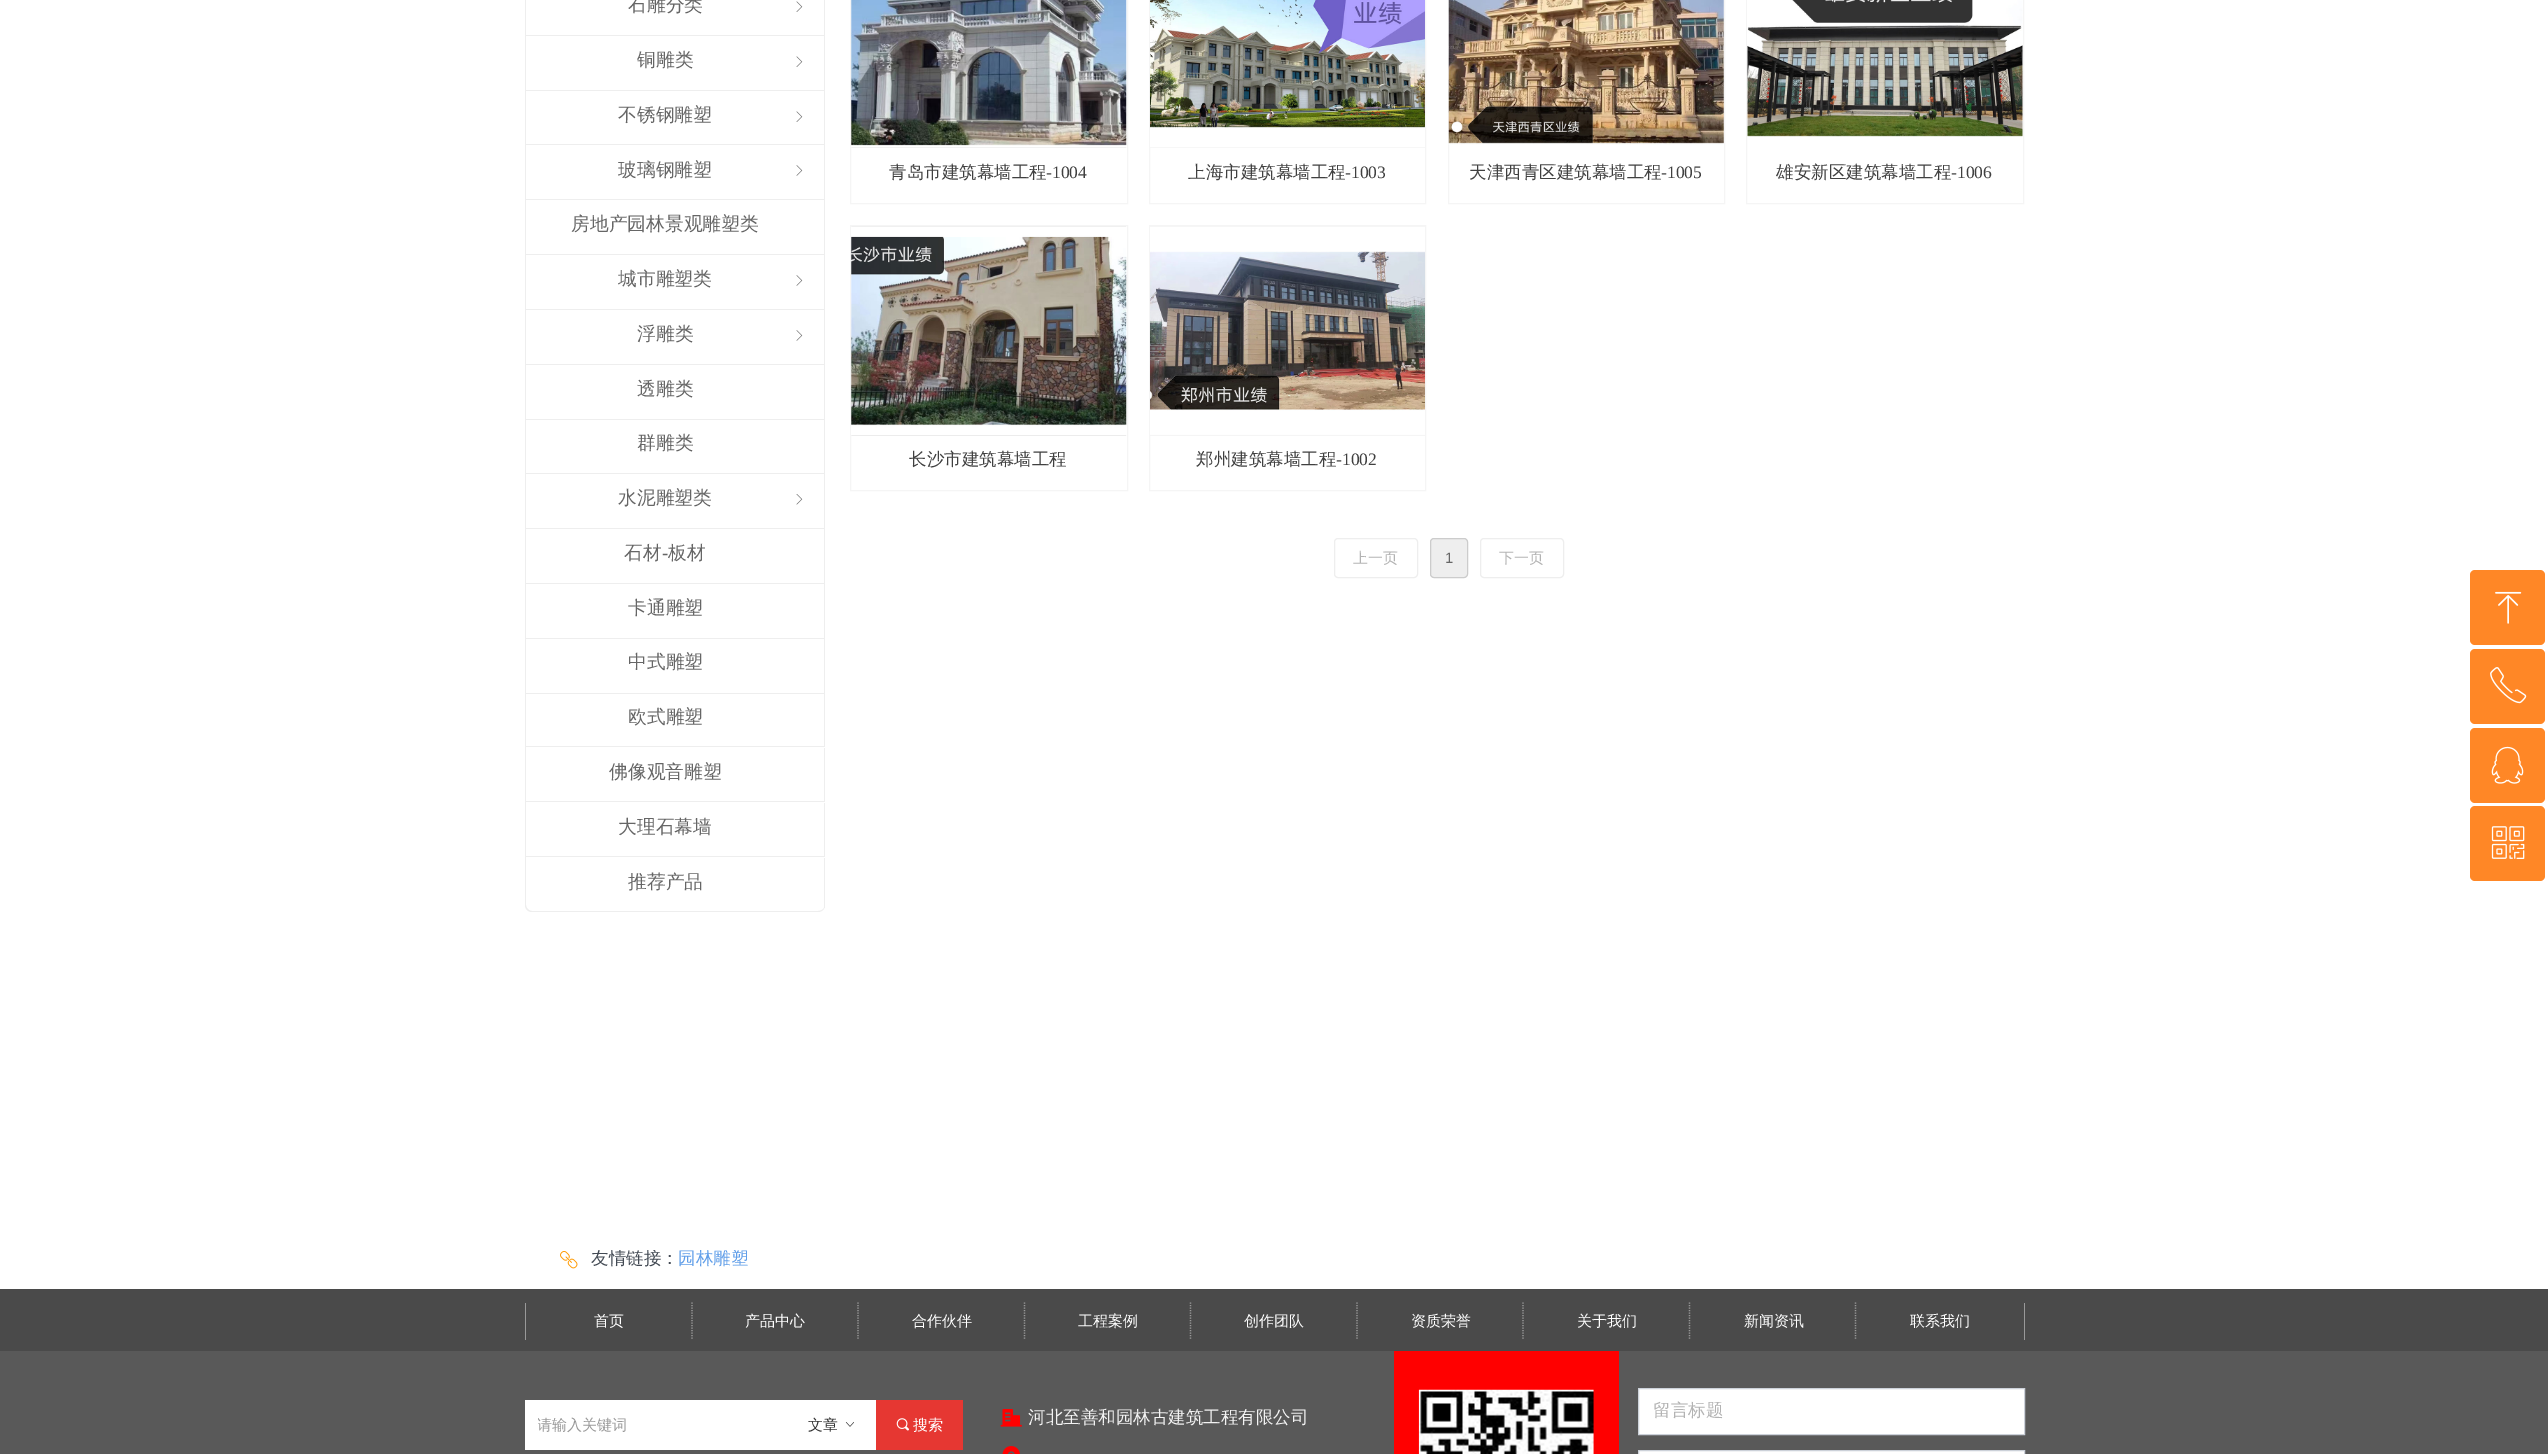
%!PS
<< /PageSize [2548 1454] >> setpagedevice
/rgb { 3 { 255 div 3 1 roll } repeat setrgbcolor } def
/font { [ exch dup neg 0 0 3 -1 roll 0 0 ] selectfont } def
/text { moveto show } def
/roundrect { 5 dict begin { /r /h /w /y /x } { exch def } forall
  x r add y moveto x w add y 2 copy h add r arct x w add y h add x 1 index r arct
  x y h add x y r arct x y 2 copy exch w add exch r arct closepath end } def
/picture { 5 dict begin { /h /w /y /x /name } { exch def } forall
  gsave x y translate w h scale
  w h 8 [w 0 0 h 0 0] name (r) file false 3 colorimage grestore end } def
0 1454 translate 1 -1 scale
4 setmiterlimit
255 255 255 rgb
0 0 2548 1454 rectfill
238 238 238 rgb
532 -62 moveto 286 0 rlineto 4 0 7 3 7 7 rcurveto 0 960 rlineto 0 4 -3 7 -7 7 rcurveto -286 0 rlineto -4 0 -7 -3 -7 -7 rcurveto 0 -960 rlineto 0 -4 3 -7 7 -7 rcurveto closepath 532 -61 moveto 286 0 rlineto 4 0 7 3 7 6 rcurveto 0 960 rlineto 0 3 -3 6 -7 6 rcurveto -286 0 rlineto -3 0 -6 -3 -6 -6 rcurveto 0 -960 rlineto 0 -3 3 -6 6 -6 rcurveto closepath eofill
824 0 1 35 rectfill
(img_01.rgb) 796 1 7 11 picture
526 35 299 1 rectfill
824 36 1 54 rectfill
(img_01.rgb) 796 56 7 11 picture
526 90 299 1 rectfill
824 91 1 53 rectfill
(img_01.rgb) 796 111 7 11 picture
526 144 299 1 rectfill
824 145 1 54 rectfill
(img_02.rgb) 796 165 7 11 picture
526 199 299 1 rectfill
824 200 1 54 rectfill
526 254 299 1 rectfill
824 255 1 54 rectfill
(img_02.rgb) 796 275 7 11 picture
526 309 299 1 rectfill
824 310 1 54 rectfill
(img_02.rgb) 796 330 7 11 picture
526 364 299 1 rectfill
824 365 1 54 rectfill
526 419 299 1 rectfill
824 420 1 53 rectfill
526 473 299 1 rectfill
824 474 1 54 rectfill
(img_03.rgb) 796 494 7 11 picture
526 528 299 1 rectfill
824 529 1 54 rectfill
526 583 299 1 rectfill
824 584 1 54 rectfill
526 638 299 1 rectfill
824 639 1 54 rectfill
526 693 299 1 rectfill
824 694 1 52 rectfill
526 746 299 1 rectfill
824 748 1 53 rectfill
526 801 299 1 rectfill
824 803 1 53 rectfill
526 856 299 1 rectfill
824 858 1 50 rectfill
245 245 245 rgb
850.5 -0.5 277 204 rectstroke
(img_04.rgb) 851 0 276 148 picture
1149.5 -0.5 276 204 rectstroke
(img_05.rgb) 1150 0 275 148 picture
1448.5 -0.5 276 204 rectstroke
(img_06.rgb) 1448 0 276 145 picture
1746.5 -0.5 277 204 rectstroke
(img_07.rgb) 1747 0 276 137 picture
850.5 225.5 277 265 rectstroke
(img_08.rgb) 851 226 276 210 picture
1149.5 225.5 276 265 rectstroke
(img_09.rgb) 1150 226 275 210 picture
238 238 238 rgb
1334.5 538.5 83 39 3.5 roundrect stroke
1430.5 538.5 37 39 3.5 roundrect gsave fill grestore
204 204 204 rgb
stroke
238 238 238 rgb
1480.5 538.5 83 39 3.5 roundrect stroke
(img_10.rgb) 560 1251 18 18 picture
74 74 74 rgb
0 1289 2548 62 rectfill
153 153 153 rgb
2024 1303 1 37 rectfill
525 1303 1 37 rectfill
1.2 setlinewidth
[1.25 1.25] 0 setdash
692 1302.5 moveto 0 37.5 rlineto stroke
858 1302.5 moveto 0 37.5 rlineto stroke
1024.5 1302.5 moveto 0 37.5 rlineto stroke
1190.5 1302.5 moveto 0 37.5 rlineto stroke
1357 1302.5 moveto 0 37.5 rlineto stroke
1523 1302.5 moveto 0 37.5 rlineto stroke
1689.5 1302.5 moveto 0 37.5 rlineto stroke
1855.5 1302.5 moveto 0 37.5 rlineto stroke
89 89 89 rgb
0 1351 2548 103 rectfill
255 255 255 rgb
525 1400 351 50 rectfill
(img_11.rgb) 845 1422 9 5 picture
230 55 50 rgb
876 1400 87 50 rectfill
(img_12.rgb) 896 1418 13 13 picture
(img_13.rgb) 1000 1409 22 18 picture
(img_14.rgb) 1002 1446 18 8 picture
255 0 0 rgb
1394 1351 225 103 rectfill
(img_15.rgb) 1418 1389 176 65 picture
255 255 255 rgb
1638.5 1388.5 moveto 386 0 rlineto 0 46 rlineto -386 0 rlineto closepath gsave fill grestore
204 209 217 rgb
1 setlinewidth
[] 0 setdash
stroke
255 255 255 rgb
1638.5 1450.5 moveto 386 0 rlineto 0 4 rlineto -386 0 rlineto closepath gsave fill grestore
204 209 217 rgb
stroke
255 135 38 rgb
2470 570 75 75 5 roundrect fill
(img_16.rgb) 2495 591 27 33 picture
2470 649 75 75 5 roundrect fill
(img_17.rgb) 2490 667 37 37 picture
2470 728 75 75 5 roundrect fill
(img_18.rgb) 2491 746 33 38 picture
2470 806 75 75 5 roundrect fill
(img_19.rgb) 2491 826 34 33 picture
/WenQuanYiZenHei-Medium 18.75 font
102 102 102 rgb
(石雕分类) 628 11 text
(铜雕类) 637 66 text
(不锈钢雕塑) 618 121 text
(玻璃钢雕塑) 618 176 text
(房地产园林景观雕塑类) 571 230 text
(城市雕塑类) 618 285 text
(浮雕类) 637 340 text
(透雕类) 637 395 text
(群雕类) 637 449 text
(水泥雕塑类) 618 504 text
(石材) 624 559 text
/LiberationSerif-Regular 18.75 font
(-) 662 559 text
/WenQuanYiZenHei-Medium 18.75 font
(板材) 668 559 text
(卡通雕塑) 628 614 text
(中式雕塑) 628 668 text
(欧式雕塑) 628 723 text
(佛像观音雕塑) 609 778 text
(大理石幕墙) 618 833 text
(推荐产品) 628 888 text
/WenQuanYiZenHei-Medium 17.5 font
64 64 64 rgb
(青岛市建筑幕墙工程) 889 178 text
/LiberationSerif-Regular 17.5 font
(-1004) 1046 178 text
/WenQuanYiZenHei-Medium 17.5 font
(上海市建筑幕墙工程) 1188 178 text
/LiberationSerif-Regular 17.5 font
(-1003) 1345 178 text
/WenQuanYiZenHei-Medium 17.5 font
(天津西青区建筑幕墙工程) 1469 178 text
/LiberationSerif-Regular 17.5 font
(-1005) 1661 178 text
/WenQuanYiZenHei-Medium 17.5 font
(雄安新区建筑幕墙工程) 1776 178 text
/LiberationSerif-Regular 17.5 font
(-1006) 1951 178 text
/WenQuanYiZenHei-Medium 17.5 font
(长沙市建筑幕墙工程) 909 465 text
(郑州建筑幕墙工程) 1196 465 text
/LiberationSerif-Regular 17.5 font
(-1002) 1336 465 text
/WenQuanYiZenHei-Medium 15 font
179 179 179 rgb
(上一页) 1353 563 text
/LiberationSans-Regular 15 font
102 102 102 rgb
(1) 1445 563 text
/WenQuanYiZenHei-Medium 15 font
179 179 179 rgb
(下一页) 1499 563 text
gsave
591 1250 1199 30 rectclip
/WenQuanYiZenHei-Medium 17.5 font
67 74 84 rgb
(友情链接：) 591 1264 text
96 158 233 rgb
(园林雕塑) 678 1264 text
grestore
255 255 255 rgb
(首页) 594 1326 text
(产品中心) 745 1326 text
(合作伙伴) 912 1326 text
(工程案例) 1078 1326 text
(创作团队) 1244 1326 text
(资质荣誉) 1411 1326 text
(关于我们) 1577 1326 text
(新闻资讯) 1744 1326 text
(联系我们) 1910 1326 text
gsave
538 1415 240 21 rectclip
153 153 153 rgb
(请输入关键词) 537 1430 text
grestore
51 51 51 rgb
(文章) 808 1430 text
255 255 255 rgb
(搜索) 913 1430 text
/WenQuanYiZenHei-Medium 17.5 font
243 243 243 rgb
(河北至善和园林古建筑工程有限公司) 1028 1423 text
179 179 179 rgb
(留言标题) 1653 1416 text
showpage
